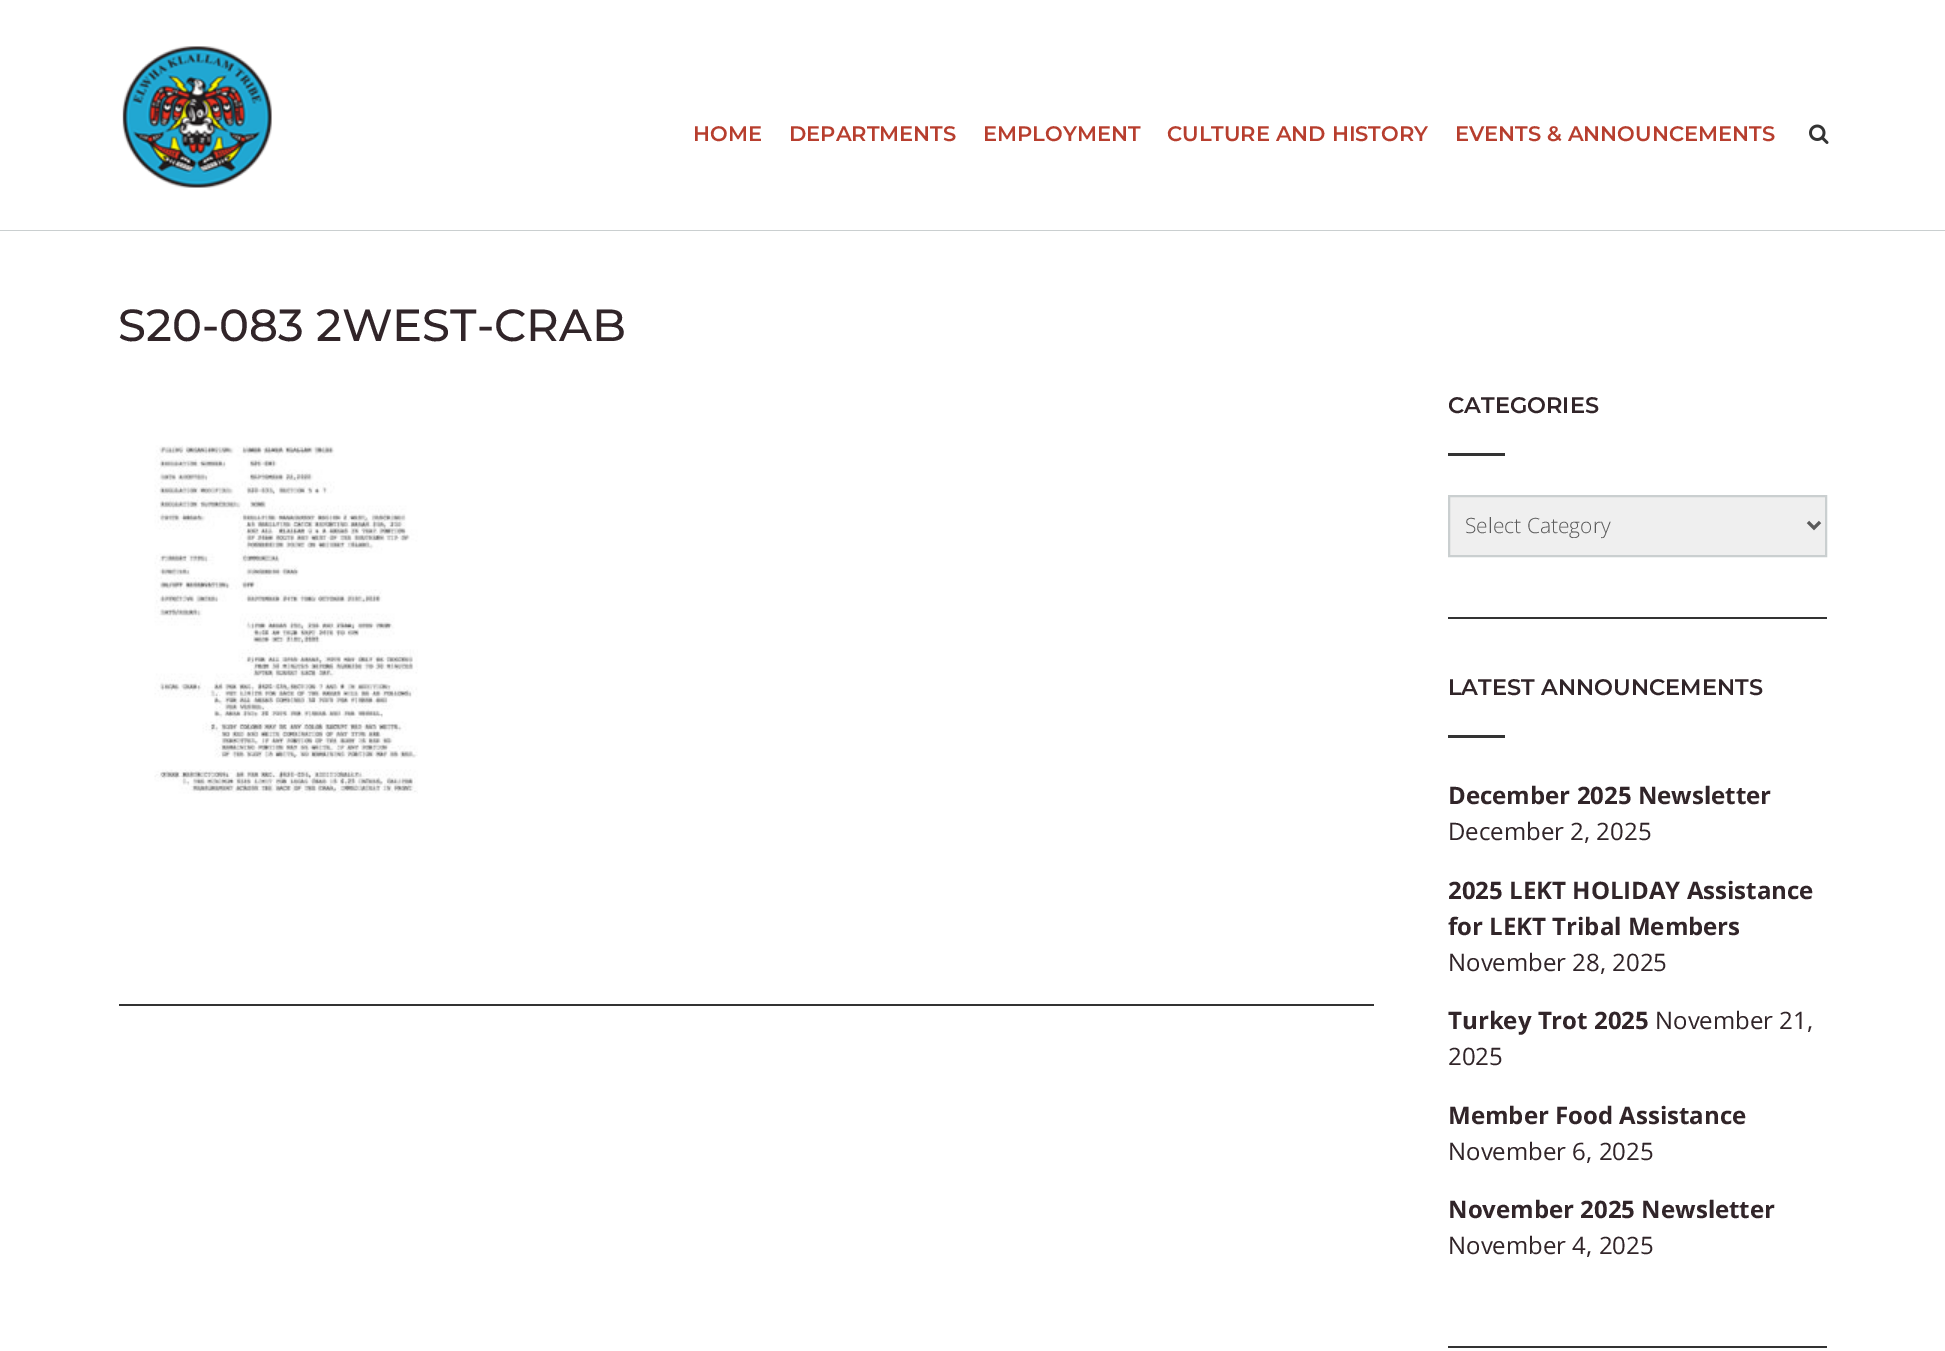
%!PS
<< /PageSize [1945 1351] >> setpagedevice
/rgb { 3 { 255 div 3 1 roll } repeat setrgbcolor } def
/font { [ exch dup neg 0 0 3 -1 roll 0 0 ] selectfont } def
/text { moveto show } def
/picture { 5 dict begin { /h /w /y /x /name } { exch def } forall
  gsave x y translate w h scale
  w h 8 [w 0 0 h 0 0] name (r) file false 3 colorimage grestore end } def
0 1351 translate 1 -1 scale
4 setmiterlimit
255 255 255 rgb
0 0 1945 1351 rectfill
202 207 208 rgb
0 230 1945 1 rectfill
(img_01.rgb) 122 46 150 142 picture
(img_02.rgb) 1809 124 20 20 picture
51 51 51 rgb
119 1004 1255 2 rectfill
(img_03.rgb) 154 445 264 349 picture
1448 617 379 2 rectfill
1448 453 57 3 rectfill
239 239 239 rgb
1449 496 moveto 377 0 rlineto 0 60 rlineto -377 0 rlineto closepath gsave fill grestore
202 207 208 rgb
2 setlinewidth
stroke
90 90 90 rgb
3 setlinewidth
1808 522 moveto 6 6 rlineto 6 -6 rlineto stroke
51 51 51 rgb
1448 1346 379 2 rectfill
1448 735 57 3 rectfill
/Montserrat-SemiBold 21 font
183 62 46 rgb
(HOME) 693 141 text
(DEPARTMENTS) 789 141 text
(EMPLOYMENT) 983 141 text
(CULTURE AND HISTORY) 1167 141 text
(EVENTS & ANNOUNCEMENTS) 1455 141 text
/Montserrat-Medium 45 font
49 37 41 rgb
(S20-083 2WEST-CRAB) 118 341 text
/Montserrat-SemiBold 22.5 font
(CATEGORIES) 1448 413 text
/OpenSans-Light 21 font
90 90 90 rgb
(Select Category) 1465 533 text
/Montserrat-SemiBold 22.5 font
49 37 41 rgb
(LATEST ANNOUNCEMENTS) 1448 695 text
/OpenSans-Bold 24 font
(December 2025 Newsletter) 1448 804 text
/OpenSans-Regular 24 font
(December 2, 2025) 1448 840 text
/OpenSans-Bold 24 font
(2025 LEKT HOLIDAY Assistance) 1448 899 text
(for LEKT Tribal Members) 1448 935 text
/OpenSans-Regular 24 font
(November 28, 2025) 1448 971 text
/OpenSans-Bold 24 font
(Turkey Trot 2025) 1448 1029 text
/OpenSans-Regular 24 font
(November 21,) 1655 1029 text
(2025) 1448 1065 text
/OpenSans-Bold 24 font
(Member Food Assistance) 1448 1124 text
/OpenSans-Regular 24 font
(November 6, 2025) 1448 1160 text
/OpenSans-Bold 24 font
(November 2025 Newsletter) 1448 1218 text
/OpenSans-Regular 24 font
(November 4, 2025) 1448 1254 text
showpage
